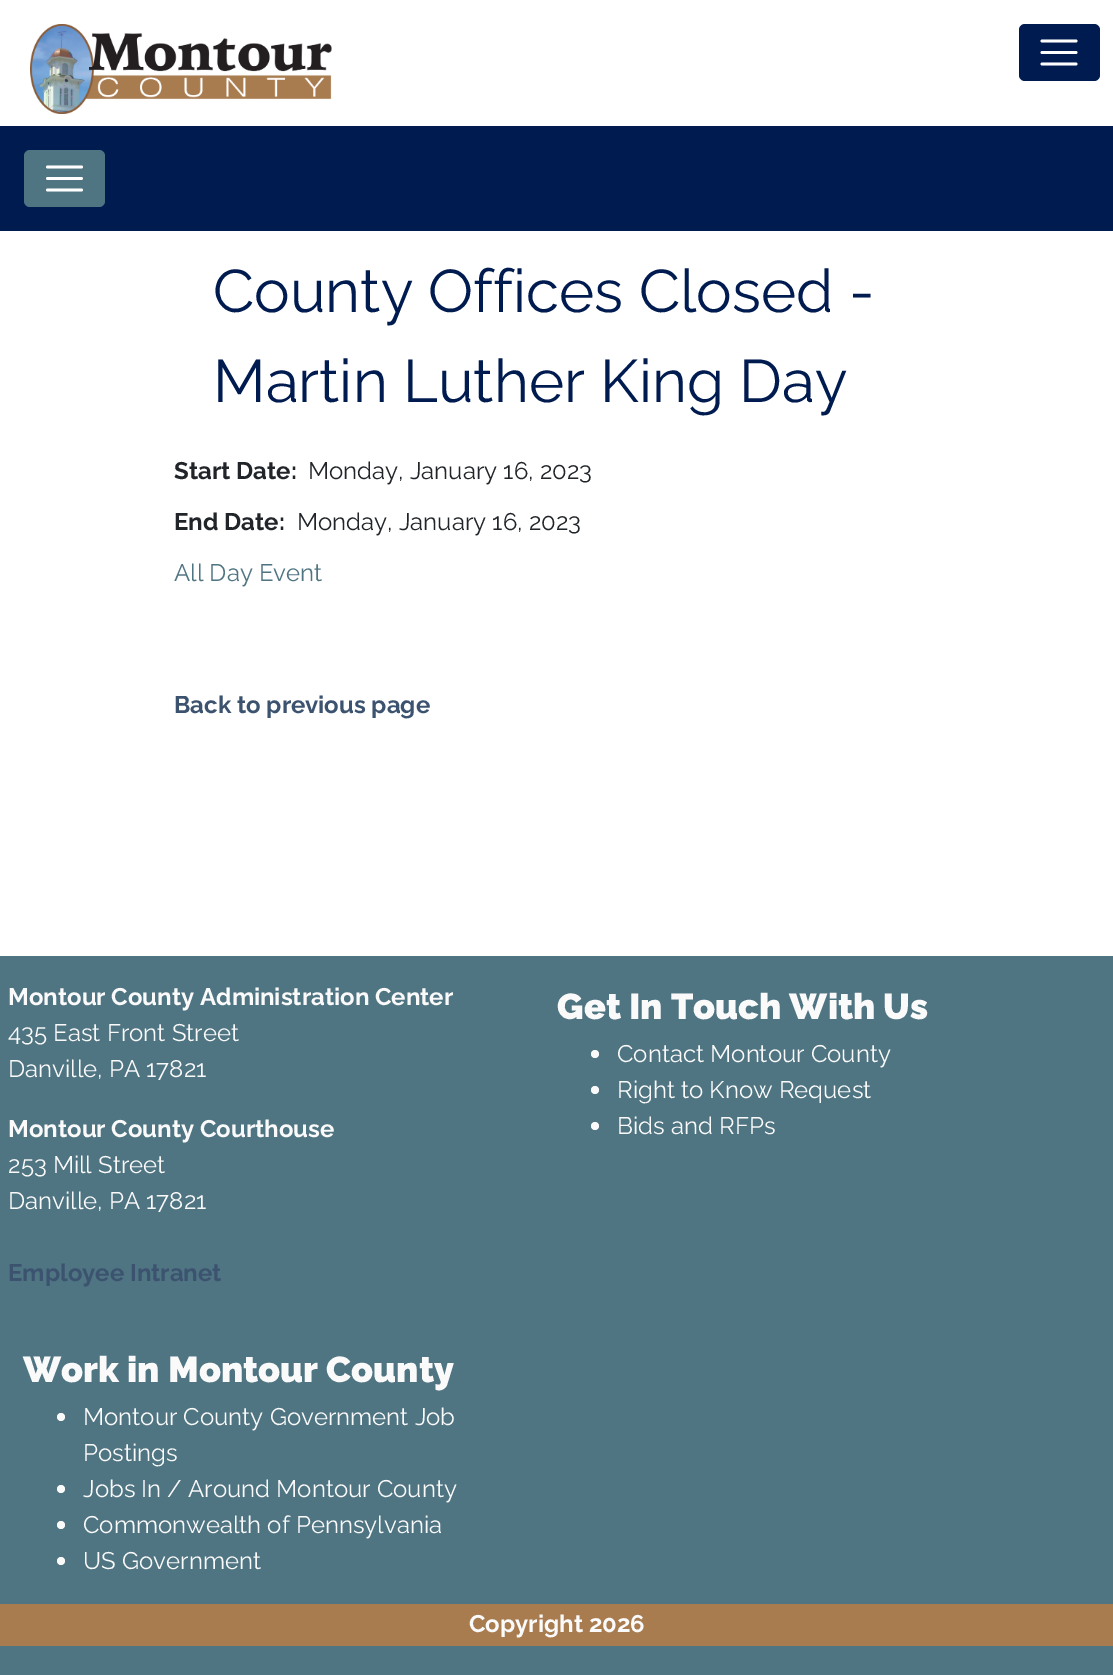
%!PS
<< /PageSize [1113 1675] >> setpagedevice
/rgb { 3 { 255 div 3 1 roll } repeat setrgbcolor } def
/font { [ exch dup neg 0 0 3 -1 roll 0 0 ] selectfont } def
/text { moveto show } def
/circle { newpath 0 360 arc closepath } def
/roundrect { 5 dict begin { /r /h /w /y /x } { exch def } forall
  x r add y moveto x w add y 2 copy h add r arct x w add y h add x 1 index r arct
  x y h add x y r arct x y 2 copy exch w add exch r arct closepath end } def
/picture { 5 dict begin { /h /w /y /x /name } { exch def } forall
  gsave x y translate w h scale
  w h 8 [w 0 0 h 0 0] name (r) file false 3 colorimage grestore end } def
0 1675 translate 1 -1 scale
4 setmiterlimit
255 255 255 rgb
0 0 1113 1675 rectfill
(img_01.rgb) 30 24 302 90 picture
0 27 80 rgb
1019 24 81 57 6 roundrect fill
255 255 255 rgb
2.8 setlinewidth
1 setlinecap
1042 41 moveto 34 0 rlineto 1042 52.5 moveto 34 0 rlineto 1042 64 moveto 34 0 rlineto stroke
0 27 80 rgb
0 126 1113 105 rectfill
79 116 130 rgb
24 150 81 57 6 roundrect fill
255 255 255 rgb
47.5 167 moveto 34 0 rlineto 47.5 178.5 moveto 34 0 rlineto 47.5 190 moveto 34 0 rlineto stroke
79 116 130 rgb
0 956 1113 719 rectfill
250 250 250 rgb
595 1054 4 circle fill
595 1090 4 circle fill
595 1126 4 circle fill
61 1417 4 circle fill
61 1489 4 circle fill
61 1525 4 circle fill
61 1561 4 circle fill
169 124 80 rgb
0 1604 1113 42 rectfill
/Raleway-Regular 60 font
0 27 80 rgb
(County Offices Closed -) 213 312 text
(Martin Luther King Day) 213 402 text
/Raleway-Bold 24 font
33 37 41 rgb
(Start Date:) 174 479 text
/Raleway-Regular 24 font
(Monday, January 16, 2023) 308 479 text
/Raleway-Bold 24 font
(End Date:) 174 530 text
/Raleway-Regular 24 font
(Monday, January 16, 2023) 297 530 text
79 116 130 rgb
(All Day Event) 174 581 text
/Raleway-Bold 24 font
60 83 112 rgb
(Back to previous page) 174 713 text
250 250 250 rgb
(Montour County Administration Center) 8 1005 text
/Raleway-Regular 24 font
(435 East Front Street) 8 1041 text
(Danville, PA 17821) 8 1077 text
/Raleway-Bold 24 font
(Montour County Courthouse) 8 1137 text
/Raleway-Regular 24 font
(253 Mill Street) 8 1173 text
(Danville, PA 17821) 8 1209 text
/Raleway-Bold 24 font
60 83 112 rgb
(Employee Intranet) 8 1281 text
/Raleway-Black 36 font
250 250 250 rgb
(Get In Touch With Us) 557 1019 text
/Raleway-Regular 24 font
(Contact Montour County) 617 1062 text
(Right to Know Request) 617 1098 text
(Bids and RFPs) 617 1134 text
/Raleway-Black 36 font
(Work in Montour County) 23 1382 text
/Raleway-Regular 24 font
(Montour County Government Job) 83 1425 text
(Postings) 83 1461 text
(Jobs In / Around Montour County) 83 1497 text
(Commonwealth of Pennsylvania) 83 1533 text
(US Government) 83 1569 text
/Raleway-Bold 24 font
(Copyright 2026) 469 1632 text
showpage
